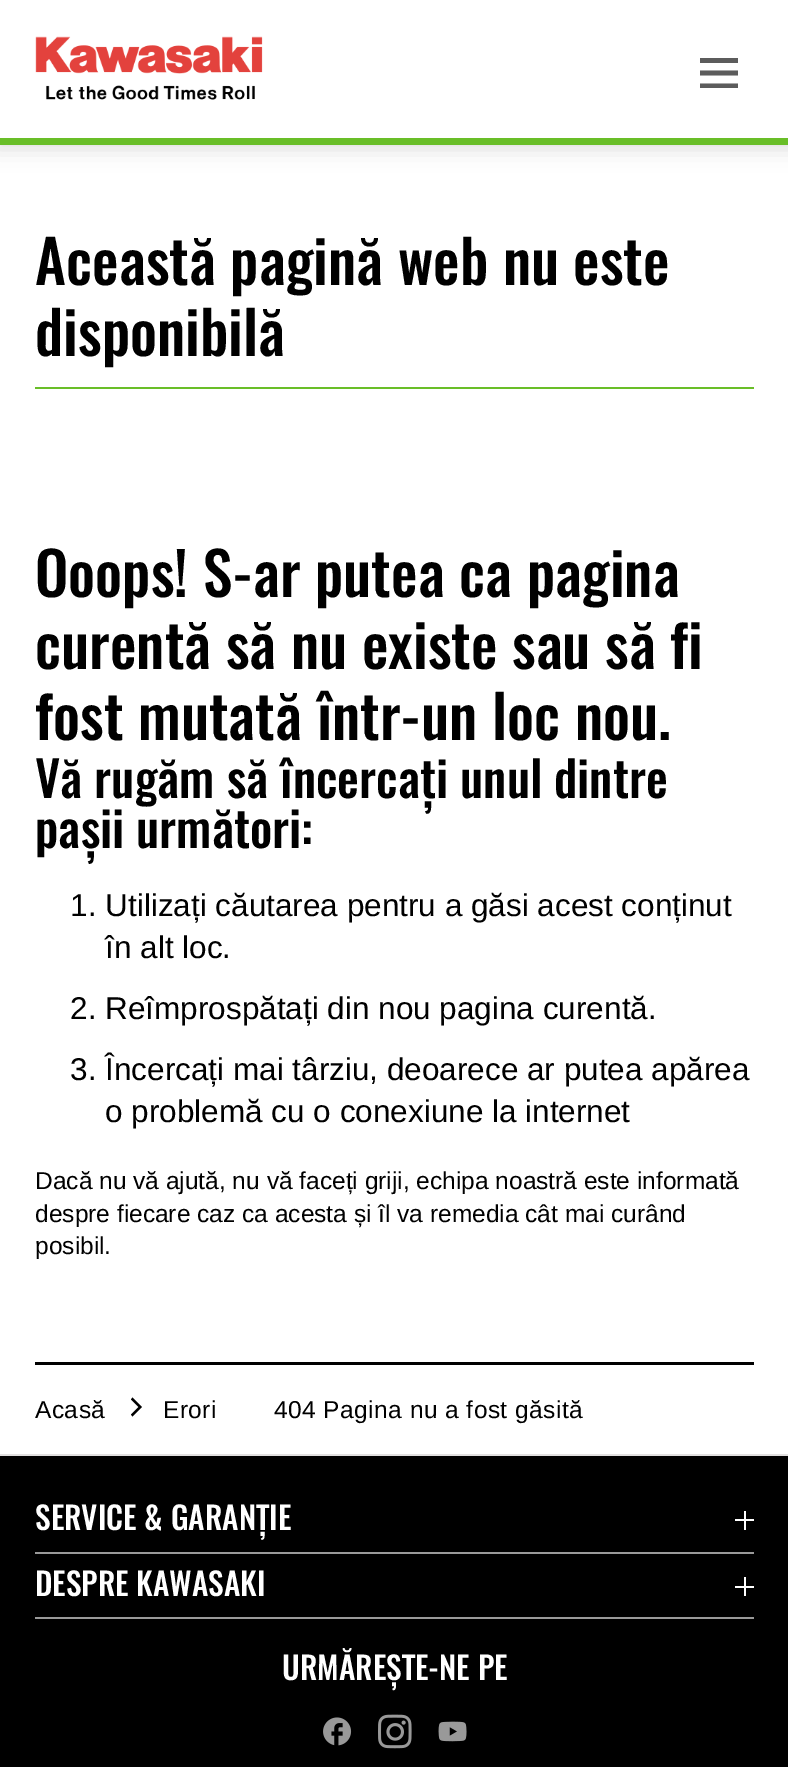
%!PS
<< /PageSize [788 1767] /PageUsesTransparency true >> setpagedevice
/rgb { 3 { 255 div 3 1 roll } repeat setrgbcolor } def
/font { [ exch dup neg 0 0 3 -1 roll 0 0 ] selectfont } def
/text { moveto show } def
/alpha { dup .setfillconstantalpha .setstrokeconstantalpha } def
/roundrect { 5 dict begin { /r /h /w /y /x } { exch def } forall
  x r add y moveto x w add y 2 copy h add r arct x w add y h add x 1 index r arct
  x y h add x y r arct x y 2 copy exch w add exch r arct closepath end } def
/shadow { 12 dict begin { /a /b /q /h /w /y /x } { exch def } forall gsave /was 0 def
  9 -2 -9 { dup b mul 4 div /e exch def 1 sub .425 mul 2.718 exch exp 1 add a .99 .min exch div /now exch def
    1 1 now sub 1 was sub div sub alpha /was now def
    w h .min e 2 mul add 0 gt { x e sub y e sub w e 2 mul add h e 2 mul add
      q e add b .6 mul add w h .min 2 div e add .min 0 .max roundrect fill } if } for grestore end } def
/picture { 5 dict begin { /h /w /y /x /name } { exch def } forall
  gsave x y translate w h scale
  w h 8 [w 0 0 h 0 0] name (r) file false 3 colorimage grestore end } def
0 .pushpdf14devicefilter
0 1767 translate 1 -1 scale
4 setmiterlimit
255 255 255 rgb
0 0 788 1767 rectfill
77 77 77 rgb
-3 -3 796 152 0 10.5 0.2 shadow
255 255 255 rgb
0 0 788 138 rectfill
105 190 40 rgb
0 138 788 7 rectfill
(img_01.rgb) 35 36 228 64 picture
92 92 92 rgb
700 58 moveto 38 0 rlineto 0 5 rlineto -38 0 rlineto closepath 700 70.5 moveto 38 0 rlineto 0 5 rlineto -38 0 rlineto closepath 700 83.5 moveto 38 0 rlineto 0 4.5 rlineto -38 0 rlineto closepath fill
105 190 40 rgb
35 387 719 2 rectfill
0 0 0 rgb
35 1362 719 3 rectfill
131 1414.5 moveto 7.5 -7.5 rlineto -7.5 -7.5 rlineto 1.5 -2 rlineto 9.5 9.5 rlineto -9.5 9.5 rlineto closepath fill
0 1456 788 311 rectfill
226 224 224 rgb
0 1454 788 2 rectfill
153 153 153 rgb
35 1552 719 2 rectfill
255 255 255 rgb
735 1519 19 2 rectfill
744 1511 2 19 rectfill
153 153 153 rgb
35 1617 719 2 rectfill
255 255 255 rgb
735 1586 19 2 rectfill
744 1577 2 19 rectfill
(img_02.rgb) 323 1717 29 29 picture
(img_03.rgb) 378 1714 34 35 picture
(img_04.rgb) 438 1721 29 21 picture
/Oswald-Medium 59.5 font
0 0 0 rgb
(Această pagină web nu este) 35 285 text
(disponibilă) 35 356 text
(Ooops! S-ar putea ca pagina) 35 597 text
(curentă să nu existe sau să fi) 35 669 text
(fost mutată într-un loc nou.) 35 740 text
/Oswald-Medium 49 font
(Vă rugăm să încercați unul dintre) 35 798 text
(pașii următori:) 35 848 text
/LiberationSans-Regular 31.5 font
(1. Utilizați căutarea pentru a găsi acest conținut) 70 916 text
(în alt loc.) 105 958 text
(2. Reîmprospătați din nou pagina curentă.) 70 1019 text
(3. Încercați mai târziu, deoarece ar putea apărea) 70 1080 text
(o problemă cu o conexiune la internet) 105 1122 text
/LiberationSans-Regular 24.5 font
(Dacă nu vă ajută, nu vă faceți griji, echipa noastră este informată) 35 1189 text
(despre fiecare caz ca acesta și îl va remedia cât mai curând) 35 1222 text
(posibil.) 35 1254 text
35 1418 moveto 0.45 0 (Acasă) ashow
163 1418 moveto 0.45 0 (Erori) ashow
274 1418 moveto 0.45 0 (404 Pagina nu a fost găsită) ashow
/Oswald-Medium 31.5 font
255 255 255 rgb
(SERVICE & GARANȚIE) 35 1530 text
(DESPRE KAWASAKI) 35 1596 text
(URMĂREȘTE-NE PE) 282 1680 text
.poppdf14devicefilter showpage
